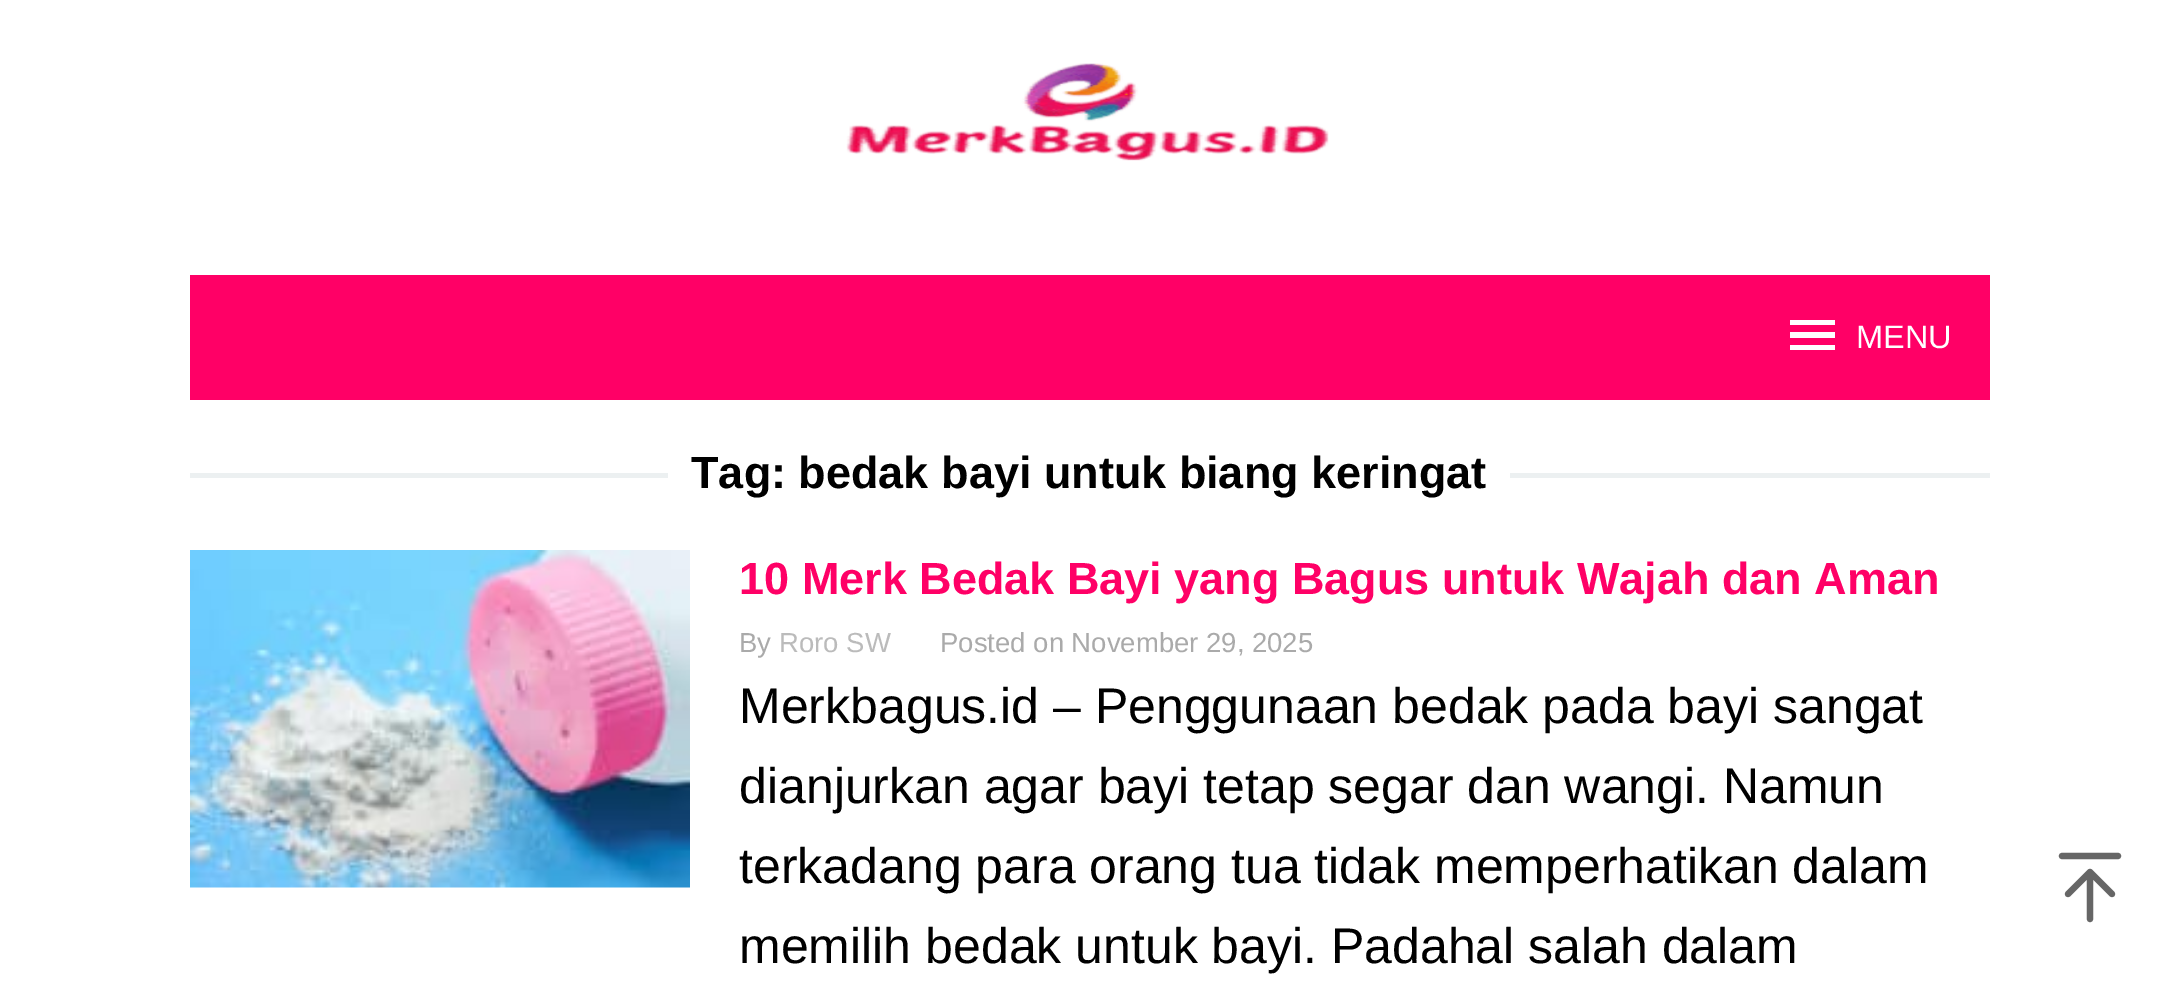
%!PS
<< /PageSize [2177 984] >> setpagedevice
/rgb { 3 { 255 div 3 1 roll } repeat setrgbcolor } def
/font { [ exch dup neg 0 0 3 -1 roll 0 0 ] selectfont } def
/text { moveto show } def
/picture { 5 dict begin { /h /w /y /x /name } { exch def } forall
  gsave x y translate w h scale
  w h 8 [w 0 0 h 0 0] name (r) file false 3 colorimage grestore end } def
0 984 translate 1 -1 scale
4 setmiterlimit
255 255 255 rgb
0 0 2177 984 rectfill
(img_01.rgb) 846 63 483 98 picture
255 0 102 rgb
190 275 1800 125 rectfill
255 255 255 rgb
1790 350 moveto 45 0 rlineto 0 -5 rlineto -45 0 rlineto closepath 1790 338 moveto 45 0 rlineto 0 -6 rlineto -45 0 rlineto closepath 1790 320 moveto 0 5 rlineto 45 0 rlineto 0 -5 rlineto closepath fill
236 240 241 rgb
190 473 478 5 rectfill
1510 473 480 5 rectfill
(img_02.rgb) 190 550 500 338 picture
102 102 102 rgb
6.2 setlinewidth
1 setlinecap
1 setlinejoin
2062 856 moveto 56 0 rlineto stroke
2090 919 moveto 0 -47 rlineto 2068 894 moveto 22 -22 rlineto 22 22 rlineto stroke
/LiberationSans-Regular 32.5 font
255 255 255 rgb
(MENU) 1856 348 text
/LiberationSans-Bold 45 font
0 0 0 rgb
(Tag: bedak bayi untuk biang keringat) 691 488 text
255 0 102 rgb
(10 Merk Bedak Bayi yang Bagus untuk Wajah dan Aman) 739 594 text
/LiberationSans-Regular 27.5 font
170 170 170 rgb
(By) 739 652 text
187 187 187 rgb
(Roro SW) 779 652 text
170 170 170 rgb
(Posted on November 29, 2025) 940 652 text
/LiberationSans-Regular 50 font
0 0 0 rgb
(Merkbagus.id – Penggunaan bedak pada bayi sangat) 739 723 text
(dianjurkan agar bayi tetap segar dan wangi. Namun) 739 803 text
(terkadang para orang tua tidak memperhatikan dalam) 739 883 text
(memilih bedak untuk bayi. Padahal salah dalam) 739 963 text
showpage
